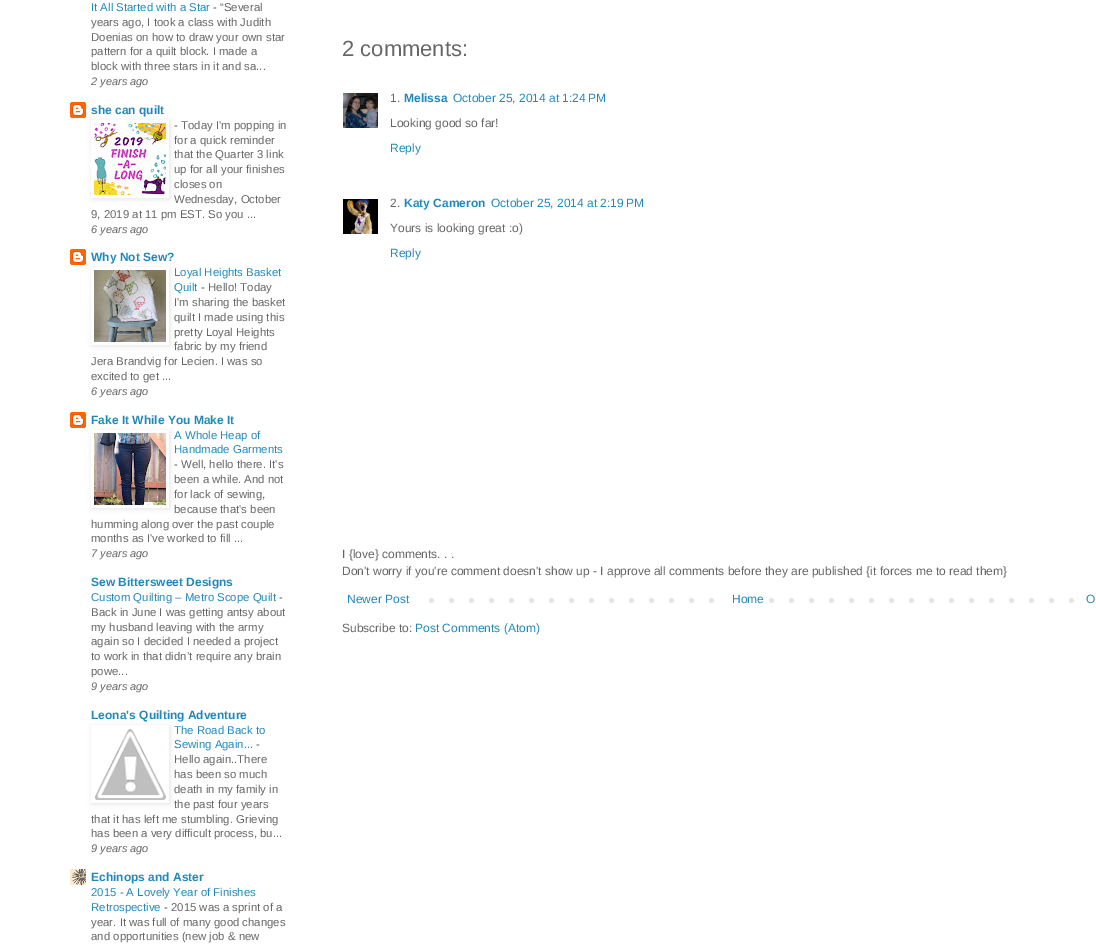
%!PS
<< /PageSize [1096 944] /PageUsesTransparency true >> setpagedevice
/rgb { 3 { 255 div 3 1 roll } repeat setrgbcolor } def
/font { [ exch dup neg 0 0 3 -1 roll 0 0 ] selectfont } def
/text { moveto show } def
/alpha { dup .setfillconstantalpha .setstrokeconstantalpha } def
/roundrect { 5 dict begin { /r /h /w /y /x } { exch def } forall
  x r add y moveto x w add y 2 copy h add r arct x w add y h add x 1 index r arct
  x y h add x y r arct x y 2 copy exch w add exch r arct closepath end } def
/shadow { 12 dict begin { /a /b /q /h /w /y /x } { exch def } forall gsave /was 0 def
  9 -2 -9 { dup b mul 4 div /e exch def 1 sub .425 mul 2.718 exch exp 1 add a .99 .min exch div /now exch def
    1 1 now sub 1 was sub div sub alpha /was now def
    w h .min e 2 mul add 0 gt { x e sub y e sub w e 2 mul add h e 2 mul add
      q e add b .6 mul add w h .min 2 div e add .min 0 .max roundrect fill } if } for grestore end } def
/picture { 5 dict begin { /h /w /y /x /name } { exch def } forall
  gsave x y translate w h scale
  w h 8 [w 0 0 h 0 0] name (r) file false 3 colorimage grestore end } def
0 .pushpdf14devicefilter
0 944 translate 1 -1 scale
4 setmiterlimit
255 255 255 rgb
0 0 1096 944 rectfill
(img_01.rgb) 70 102 16 16 picture
gsave
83 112 moveto 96 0 rlineto 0 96 rlineto -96 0 rlineto closepath 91 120 moveto 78 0 rlineto 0 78 rlineto -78 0 rlineto closepath eoclip newpath
0 0 0 rgb
92 121 78 78 0 2.5 0.1 shadow
grestore
(img_02.rgb) 94 123 72 72 picture
(img_01.rgb) 70 249 16 16 picture
gsave
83 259 moveto 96 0 rlineto 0 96 rlineto -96 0 rlineto closepath 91 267 moveto 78 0 rlineto 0 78 rlineto -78 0 rlineto closepath eoclip newpath
0 0 0 rgb
92 268 78 78 0 2.5 0.1 shadow
grestore
(img_03.rgb) 94 270 72 72 picture
(img_01.rgb) 70 412 16 16 picture
gsave
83 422 moveto 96 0 rlineto 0 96 rlineto -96 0 rlineto closepath 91 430 moveto 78 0 rlineto 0 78 rlineto -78 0 rlineto closepath eoclip newpath
0 0 0 rgb
92 431 78 78 0 2.5 0.1 shadow
grestore
(img_04.rgb) 94 433 72 72 picture
gsave
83 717 moveto 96 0 rlineto 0 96 rlineto -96 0 rlineto closepath 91 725 moveto 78 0 rlineto 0 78 rlineto -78 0 rlineto closepath eoclip newpath
0 0 0 rgb
92 726 78 78 0 2.5 0.1 shadow
grestore
(img_05.rgb) 95 729 71 71 picture
(img_06.rgb) 70 869 16 16 picture
(img_07.rgb) 343 93 35 35 picture
(img_08.rgb) 343 199 35 35 picture
(img_09.rgb) 429 598 645 5 picture
729 598 26 5 rectfill
/LiberationSans-Regular 11.4 font
34 136 187 rgb
(It All Started with a Star) 91 11 text
102 102 102 rgb
(- “Several) 213 11 text
(years ago, I took a class with Judith) 91 26 text
(Doenias on how to draw your own star) 91 41 text
(pattern for a quilt block. I made a) 91 55 text
(block with three stars in it and sa...) 91 70 text
/LiberationSans-Italic 11 font
(2 years ago) 91 85 text
/LiberationSans-Bold 12 font
34 136 187 rgb
(she can quilt) 91 114 text
/LiberationSans-Regular 11.4 font
102 102 102 rgb
(- Today I'm popping in) 174 129 text
(for a quick reminder) 174 144 text
(that the Quarter 3 link) 174 158 text
(up for all your finishes) 174 173 text
(closes on) 174 188 text
(Wednesday, October) 174 203 text
(9, 2019 at 11 pm EST. So you ...) 91 218 text
/LiberationSans-Italic 11 font
(6 years ago) 91 233 text
/LiberationSans-Bold 12 font
34 136 187 rgb
(Why Not Sew?) 91 261 text
/LiberationSans-Regular 11.4 font
(Loyal Heights Basket) 174 276 text
(Quilt) 174 291 text
102 102 102 rgb
(- Hello! Today) 201 291 text
(I'm sharing the basket) 174 306 text
(quilt I made using this) 174 321 text
(pretty Loyal Heights) 174 336 text
(fabric by my friend) 174 350 text
(Jera Brandvig for Lecien. I was so) 91 365 text
(excited to get ...) 91 380 text
/LiberationSans-Italic 11 font
(6 years ago) 91 395 text
/LiberationSans-Bold 12 font
34 136 187 rgb
(Fake It While You Make It) 91 424 text
/LiberationSans-Regular 11.4 font
(A Whole Heap of) 174 439 text
(Handmade Garments) 174 453 text
102 102 102 rgb
(- Well, hello there. It's) 174 468 text
(been a while. And not) 174 483 text
(for lack of sewing,) 174 498 text
(because that's been) 174 513 text
(humming along over the past couple) 91 528 text
(months as I've worked to fill ...) 91 542 text
/LiberationSans-Italic 11 font
(7 years ago) 91 557 text
/LiberationSans-Bold 12 font
34 136 187 rgb
(Sew Bittersweet Designs) 91 586 text
/LiberationSans-Regular 11.4 font
(Custom Quilting – Metro Scope Quilt) 91 601 text
102 102 102 rgb
(-) 279 601 text
(Back in June I was getting antsy about) 91 616 text
(my husband leaving with the army) 91 631 text
(again so I decided I needed a project) 91 645 text
(to work in that didn’t require any brain) 91 660 text
(powe...) 91 675 text
/LiberationSans-Italic 11 font
(9 years ago) 91 690 text
/LiberationSans-Bold 12 font
34 136 187 rgb
(Leona's Quilting Adventure) 91 719 text
/LiberationSans-Regular 11.4 font
(The Road Back to) 174 734 text
(Sewing Again...) 174 748 text
102 102 102 rgb
(-) 256 748 text
(Hello again..There) 174 763 text
(has been so much) 174 778 text
(death in my family in) 174 793 text
(the past four years) 174 808 text
(that it has left me stumbling. Grieving) 91 823 text
(has been a very difficult process, bu...) 91 837 text
/LiberationSans-Italic 11 font
(9 years ago) 91 852 text
/LiberationSans-Bold 12 font
34 136 187 rgb
(Echinops and Aster) 91 881 text
/LiberationSans-Regular 11.4 font
(2015 - A Lovely Year of Finishes) 91 896 text
(Retrospective) 91 911 text
102 102 102 rgb
(- 2015 was a sprint of a) 164 911 text
(year. It was full of many good changes) 91 926 text
(and opportunities \(new job & new) 91 940 text
/LiberationSans-Regular 22 font
(2 comments:) 342 56 text
/LiberationSans-Regular 12 font
(1.) 390 102 text
/LiberationSans-Bold 12 font
34 136 187 rgb
(Melissa) 404 102 text
/LiberationSans-Regular 12 font
(October 25, 2014 at 1:24 PM) 453 102 text
102 102 102 rgb
(Looking good so far!) 390 127 text
34 136 187 rgb
(Reply) 390 152 text
102 102 102 rgb
(2.) 390 207 text
/LiberationSans-Bold 12 font
34 136 187 rgb
(Katy Cameron) 404 207 text
/LiberationSans-Regular 12 font
(October 25, 2014 at 2:19 PM) 491 207 text
102 102 102 rgb
(Yours is looking great :o\)) 390 232 text
34 136 187 rgb
(Reply) 390 257 text
102 102 102 rgb
(I {love} comments. . .) 342 558 text
(Don't worry if you're comment doesn't show up - I approve all comments before they are published {it forces me to read them}) 342 575 text
34 136 187 rgb
(Newer Post) 347 603 text
(Home) 732 603 text
(O) 1086 603 text
102 102 102 rgb
(Subscribe to:) 342 632 text
34 136 187 rgb
(Post Comments \(Atom\)) 415 632 text
.poppdf14devicefilter showpage
